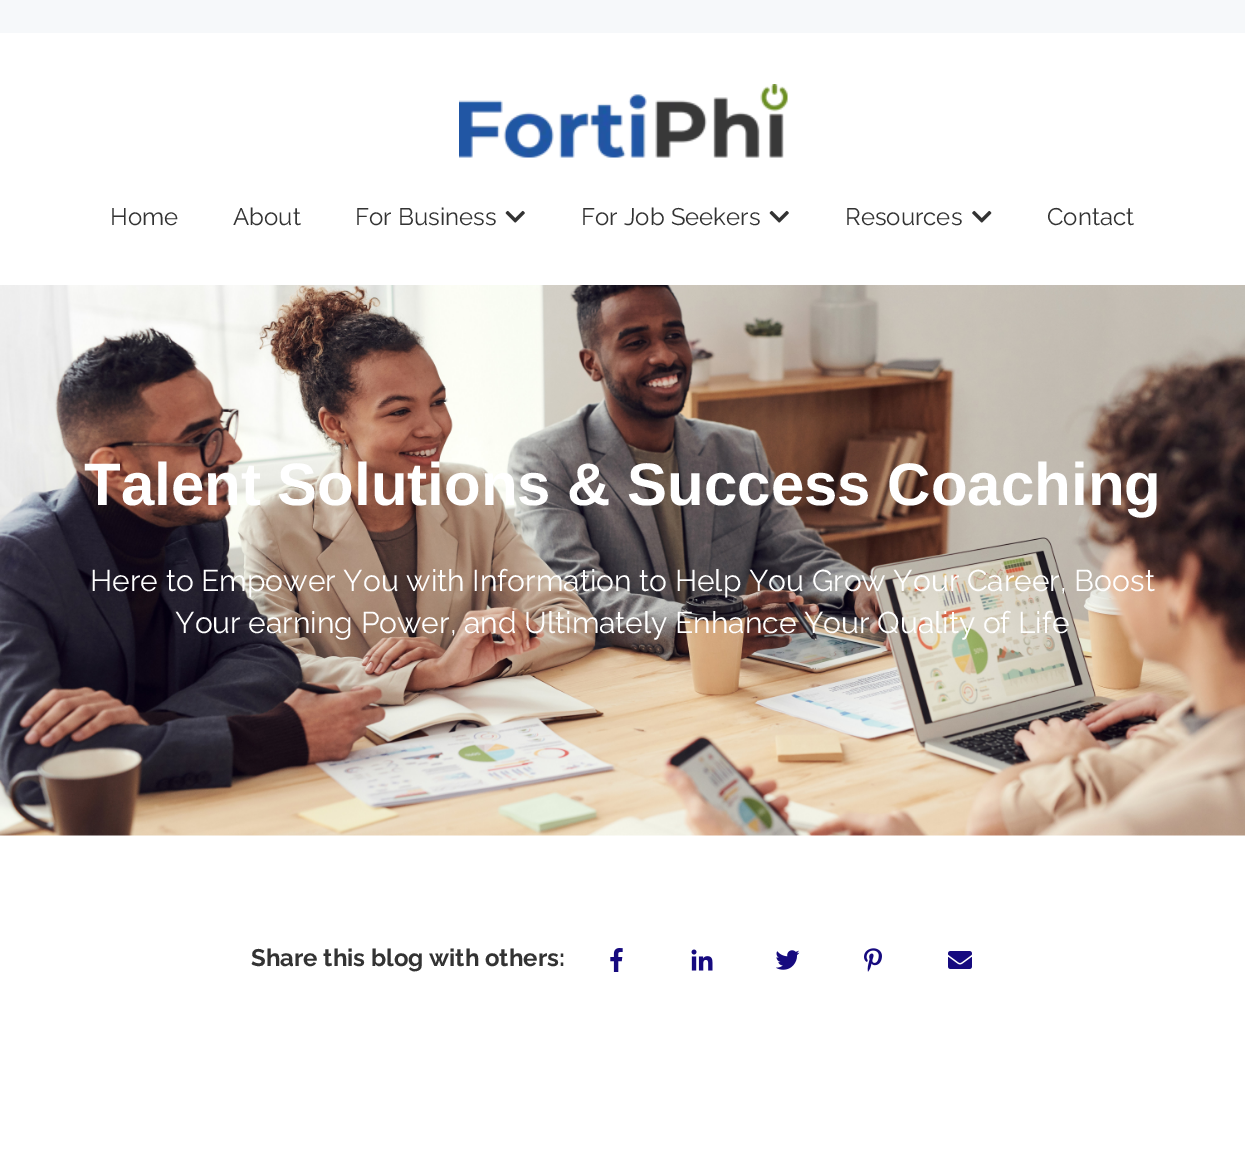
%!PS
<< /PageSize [1245 1161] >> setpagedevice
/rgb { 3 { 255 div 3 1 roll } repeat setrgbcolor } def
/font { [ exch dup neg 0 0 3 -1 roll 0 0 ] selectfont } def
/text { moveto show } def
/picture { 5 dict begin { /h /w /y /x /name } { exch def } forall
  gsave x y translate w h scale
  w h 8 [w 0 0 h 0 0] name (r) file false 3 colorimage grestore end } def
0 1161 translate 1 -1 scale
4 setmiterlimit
255 255 255 rgb
0 0 1245 1161 rectfill
246 248 250 rgb
0 0 1245 33 rectfill
(img_01.rgb) 459 84 329 74 picture
(img_02.rgb) 505 210 20 13 picture
(img_02.rgb) 769 210 20 13 picture
(img_03.rgb) 972 210 20 13 picture
(img_04.rgb) 0 285 1245 551 picture
(img_05.rgb) 610 948 13 24 picture
(img_06.rgb) 691 949 22 22 picture
(img_07.rgb) 776 950 24 20 picture
(img_08.rgb) 864 948 18 24 picture
(img_09.rgb) 948 951 24 18 picture
/Raleway-Regular 24 font
51 51 51 rgb
(Home) 110 225 text
(About) 233 225 text
(For Business) 355 225 text
(For Job Seekers) 581 225 text
(Resources) 845 225 text
(Contact) 1047 225 text
/LiberationSans-Bold 60 font
255 255 255 rgb
(Talent Solutions & Success Coaching) 84 505 text
/Raleway-Regular 30 font
(Here to Empower You with Information to Help You Grow Your Career, Boost) 90 591 text
(Your earning Power, and Ultimately Enhance Your Quality of Life) 175 633 text
/Raleway-Bold 24 font
51 51 51 rgb
(Share this blog with others:) 251 966 text
showpage
